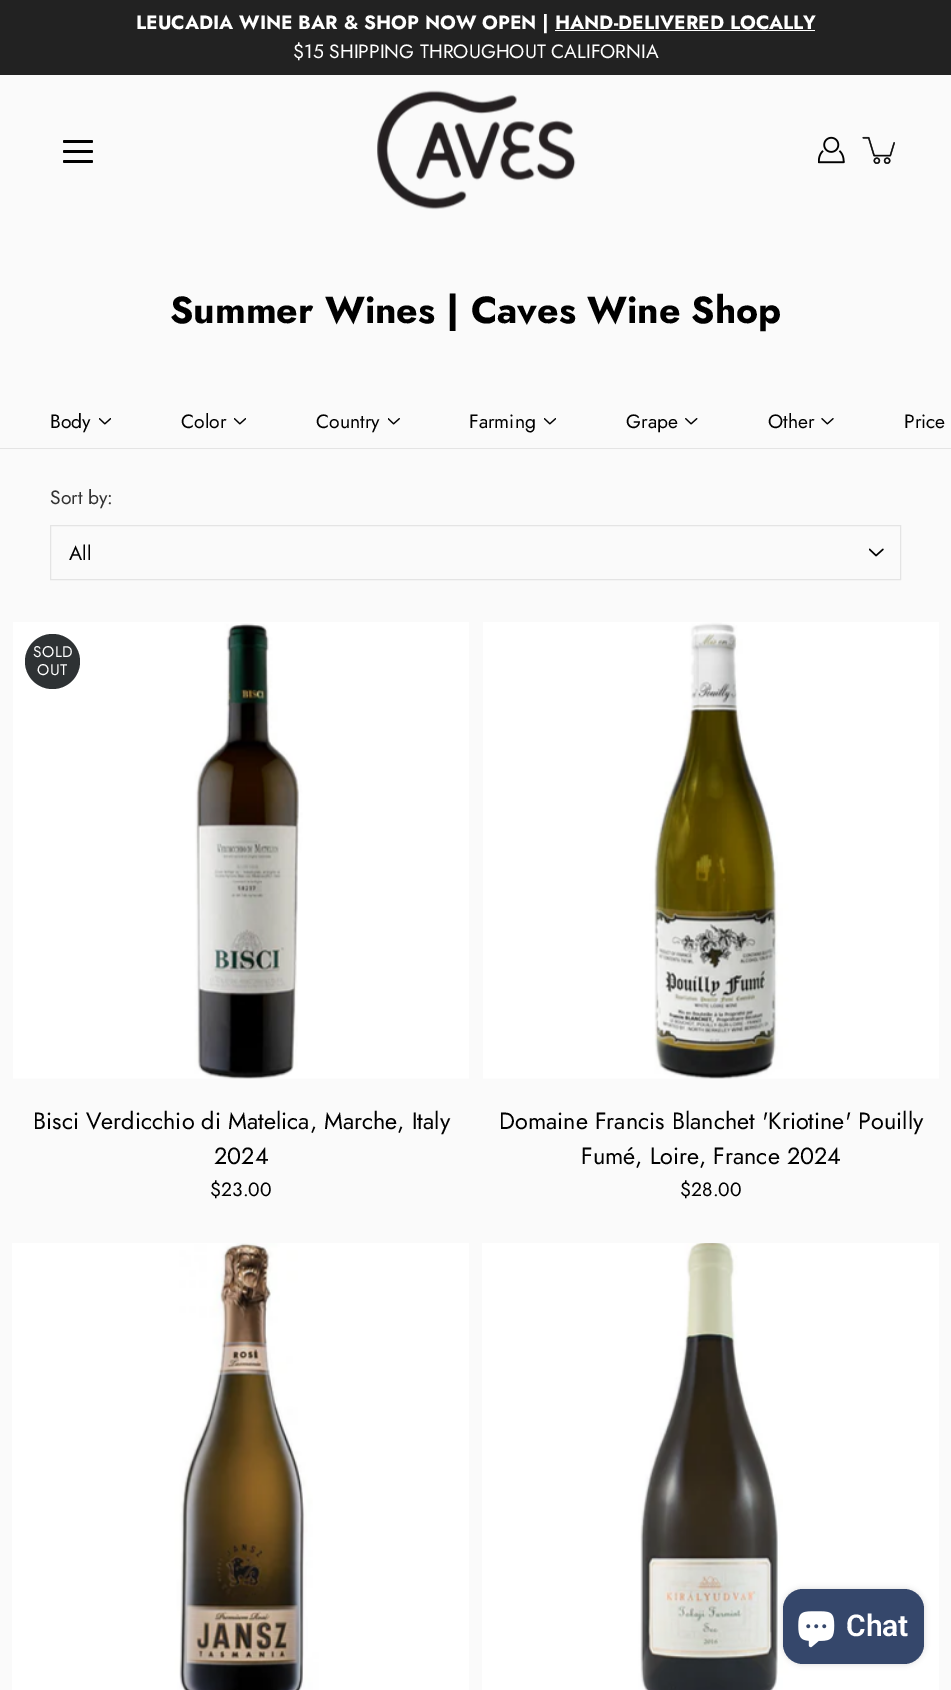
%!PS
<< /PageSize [951 1690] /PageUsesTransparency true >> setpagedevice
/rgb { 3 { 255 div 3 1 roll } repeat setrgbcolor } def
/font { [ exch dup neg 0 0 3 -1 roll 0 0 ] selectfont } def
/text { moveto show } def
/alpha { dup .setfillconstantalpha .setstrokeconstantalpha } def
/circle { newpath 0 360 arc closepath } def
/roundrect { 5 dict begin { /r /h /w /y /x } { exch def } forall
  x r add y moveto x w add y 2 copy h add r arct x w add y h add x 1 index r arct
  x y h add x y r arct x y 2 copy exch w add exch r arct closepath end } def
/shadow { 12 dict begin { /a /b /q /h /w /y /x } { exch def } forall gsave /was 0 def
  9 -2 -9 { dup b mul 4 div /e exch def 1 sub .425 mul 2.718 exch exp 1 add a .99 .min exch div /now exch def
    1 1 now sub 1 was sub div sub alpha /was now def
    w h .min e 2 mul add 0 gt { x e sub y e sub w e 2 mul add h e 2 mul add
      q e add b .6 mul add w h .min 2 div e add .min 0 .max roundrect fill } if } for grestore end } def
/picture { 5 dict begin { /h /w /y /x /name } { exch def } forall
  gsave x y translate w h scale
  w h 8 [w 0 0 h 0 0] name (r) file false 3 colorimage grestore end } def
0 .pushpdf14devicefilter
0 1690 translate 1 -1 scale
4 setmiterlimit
250 250 250 rgb
0 0 951 1690 rectfill
34 34 34 rgb
0 0 951 75 rectfill
255 255 255 rgb
555 30 260 1 rectfill
(img_01.rgb) 377 90 199 120 picture
0 0 0 rgb
63 150 30 3 1.5 roundrect fill
63 140 30 3 1.5 roundrect fill
63 160 30 3 1.5 roundrect fill
(img_02.rgb) 818 136 27 28 picture
(img_03.rgb) 862 136 33 28 picture
228 228 228 rgb
0 448 951 1 rectfill
(img_04.rgb) 99 418 12 7 picture
(img_04.rgb) 234 418 12 7 picture
(img_05.rgb) 388 418 12 7 picture
(img_04.rgb) 544 418 12 7 picture
(img_06.rgb) 685 418 13 7 picture
(img_07.rgb) 821 418 13 7 picture
50.5 525.5 850 54 rectstroke
(img_08.rgb) 869 548 15 9 picture
(img_09.rgb) 13 622 456 457 picture
46 50 52 rgb
52.5 661.5 27.5 circle fill
(img_10.rgb) 483 622 456 457 picture
(img_11.rgb) 12 1243 457 447 picture
(img_12.rgb) 482 1243 457 447 picture
0 0 0 rgb
783 1589 141 75 20 3 0.15 shadow
53 71 107 rgb
783 1589 141 75 20 roundrect fill
(img_13.rgb) 798 1611 37 37 picture
/Jost-Bold 19.25 font
255 255 255 rgb
(LEUCADIA WINE BAR & SHOP NOW OPEN | HAND-DELIVERED LOCALLY) 136 29 text
/Jost-Regular 19.25 font
($15 SHIPPING THROUGHOUT CALIFORNIA) 293 58 text
/Jost-Bold 37.5 font
0 0 0 rgb
(Summer Wines | Caves Wine Shop) 170 323 text
/Jost-Regular 19.25 font
(Body) 50 428 text
(Color) 181 428 text
(Country) 316 428 text
(Farming) 469 428 text
(Grape) 626 428 text
(Other) 768 428 text
(Price) 904 428 text
50 50 50 rgb
(Sort by:) 50 504 text
/Jost-Regular 20 font
0 0 0 rgb
(All) 69 560 text
/Jost-Regular 15.5 font
255 255 255 rgb
33 657 moveto 0.5 0 (SOLD) ashow
37 675 moveto 0.5 0 (OUT) ashow
/Jost-Regular 23.4 font
0 0 0 rgb
(Bisci Verdicchio di Matelica, Marche, Italy) 33 1129 text
(2024) 214 1164 text
/Jost-Regular 19.25 font
($23.00) 210 1196 text
/Jost-Regular 23.4 font
(Domaine Francis Blanchet 'Kriotine' Pouilly) 499 1129 text
(Fumé, Loire, France 2024) 581 1164 text
/Jost-Regular 19.25 font
($28.00) 680 1196 text
/Roboto-SemiBold 30 font
255 255 255 rgb
(Chat) 846 1636 text
.poppdf14devicefilter showpage
